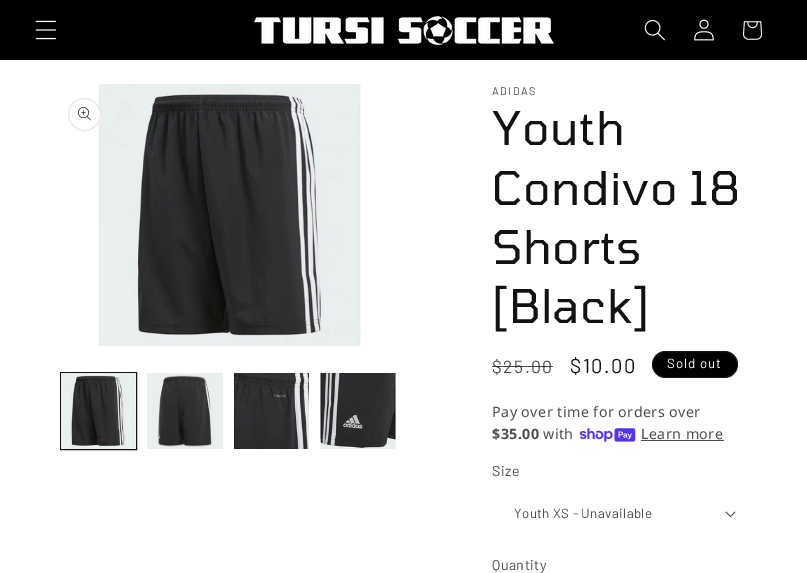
%!PS
<< /PageSize [807 573] /PageUsesTransparency true >> setpagedevice
/rgb { 3 { 255 div 3 1 roll } repeat setrgbcolor } def
/font { [ exch dup neg 0 0 3 -1 roll 0 0 ] selectfont } def
/alpha { dup .setfillconstantalpha .setstrokeconstantalpha } def
/circle { newpath 0 360 arc closepath } def
/roundrect { 5 dict begin { /r /h /w /y /x } { exch def } forall
  x r add y moveto x w add y 2 copy h add r arct x w add y h add x 1 index r arct
  x y h add x y r arct x y 2 copy exch w add exch r arct closepath end } def
/picture { 5 dict begin { /h /w /y /x /name } { exch def } forall
  gsave x y translate w h scale
  w h 8 [w 0 0 h 0 0] name (r) file false 3 colorimage grestore end } def
0 .pushpdf14devicefilter
0 573 translate 1 -1 scale
4 setmiterlimit
255 255 255 rgb
0 0 807 573 rectfill
0 0 0 rgb
0 0 807 60 rectfill
(img_01.rgb) 35 20 21 20 picture
(img_02.rgb) 254 16 300 29 picture
(img_03.rgb) 644 19 21 22 picture
(img_04.rgb) 694 19 20 22 picture
(img_05.rgb) 743 21 20 19 picture
(img_07.rgb) 98 84 263 262 picture
255 255 255 rgb
84.5 114.5 16.5 circle fill
0.1 alpha
18 18 18 rgb
84.5 114.5 16 circle stroke
1 alpha
(img_06.rgb) 78 107 13 14 picture
60.5 372.5 76 77 rectstroke
(img_08.rgb) 61 373 75 76 picture
(img_09.rgb) 147 373 76 76 picture
(img_10.rgb) 234 373 75 76 picture
(img_11.rgb) 320 373 76 76 picture
0 0 0 rgb
652 351 86 27 13.5 roundrect fill
0.1 alpha
255 255 255 rgb
652.5 351.5 85 26 13 roundrect stroke
1 alpha
(img_12.rgb) 579 428 57 14 picture
77 77 77 rgb
641 440 83 1 rectfill
(img_13.rgb) 725 511 11 6 picture
/Barlow-Regular 11 font
492 95 moveto 1.5 0 (ADIDAS) ashow
/Tomorrow-Regular 46 font
18 18 18 rgb
492 145 moveto 0.75 0 (Youth) ashow
492 205 moveto 0.75 0 (Condivo 18) ashow
492 264 moveto 0.75 0 (Shorts) ashow
492 323 moveto 0.75 0 ([Black]) ashow
/Barlow-Regular 17.5 font
77 77 77 rgb
492 373 moveto 1.5 0 ($25.00) ashow
0.75 alpha
18 18 18 rgb
492 366 61 1 rectfill
/Barlow-Regular 20 font
1 alpha
570 373 moveto 1.5 0 ($10.00) ashow
/Barlow-Regular 13.25 font
255 255 255 rgb
667 368 moveto 1 0 (Sold out) ashow
/NotoSans-Regular 14.25 font
77 77 77 rgb
492 417 moveto 0.45 0 (Pay over time for orders over) ashow
/NotoSans-Bold 14.25 font
492 439 moveto 0.45 0 ($35.00) ashow
/NotoSans-Regular 14.25 font
543 439 moveto 0.45 0 (with) ashow
641 439 moveto 0.45 0 (Learn more) ashow
/Barlow-Regular 14.25 font
492 476 moveto 0.45 0 (Size) ashow
/Barlow-Regular 13.25 font
514 518 moveto 0.45 0 (Youth XS - Unavailable) ashow
/Barlow-Regular 14.25 font
492 570 moveto 0.45 0 (Quantity) ashow
.poppdf14devicefilter showpage
